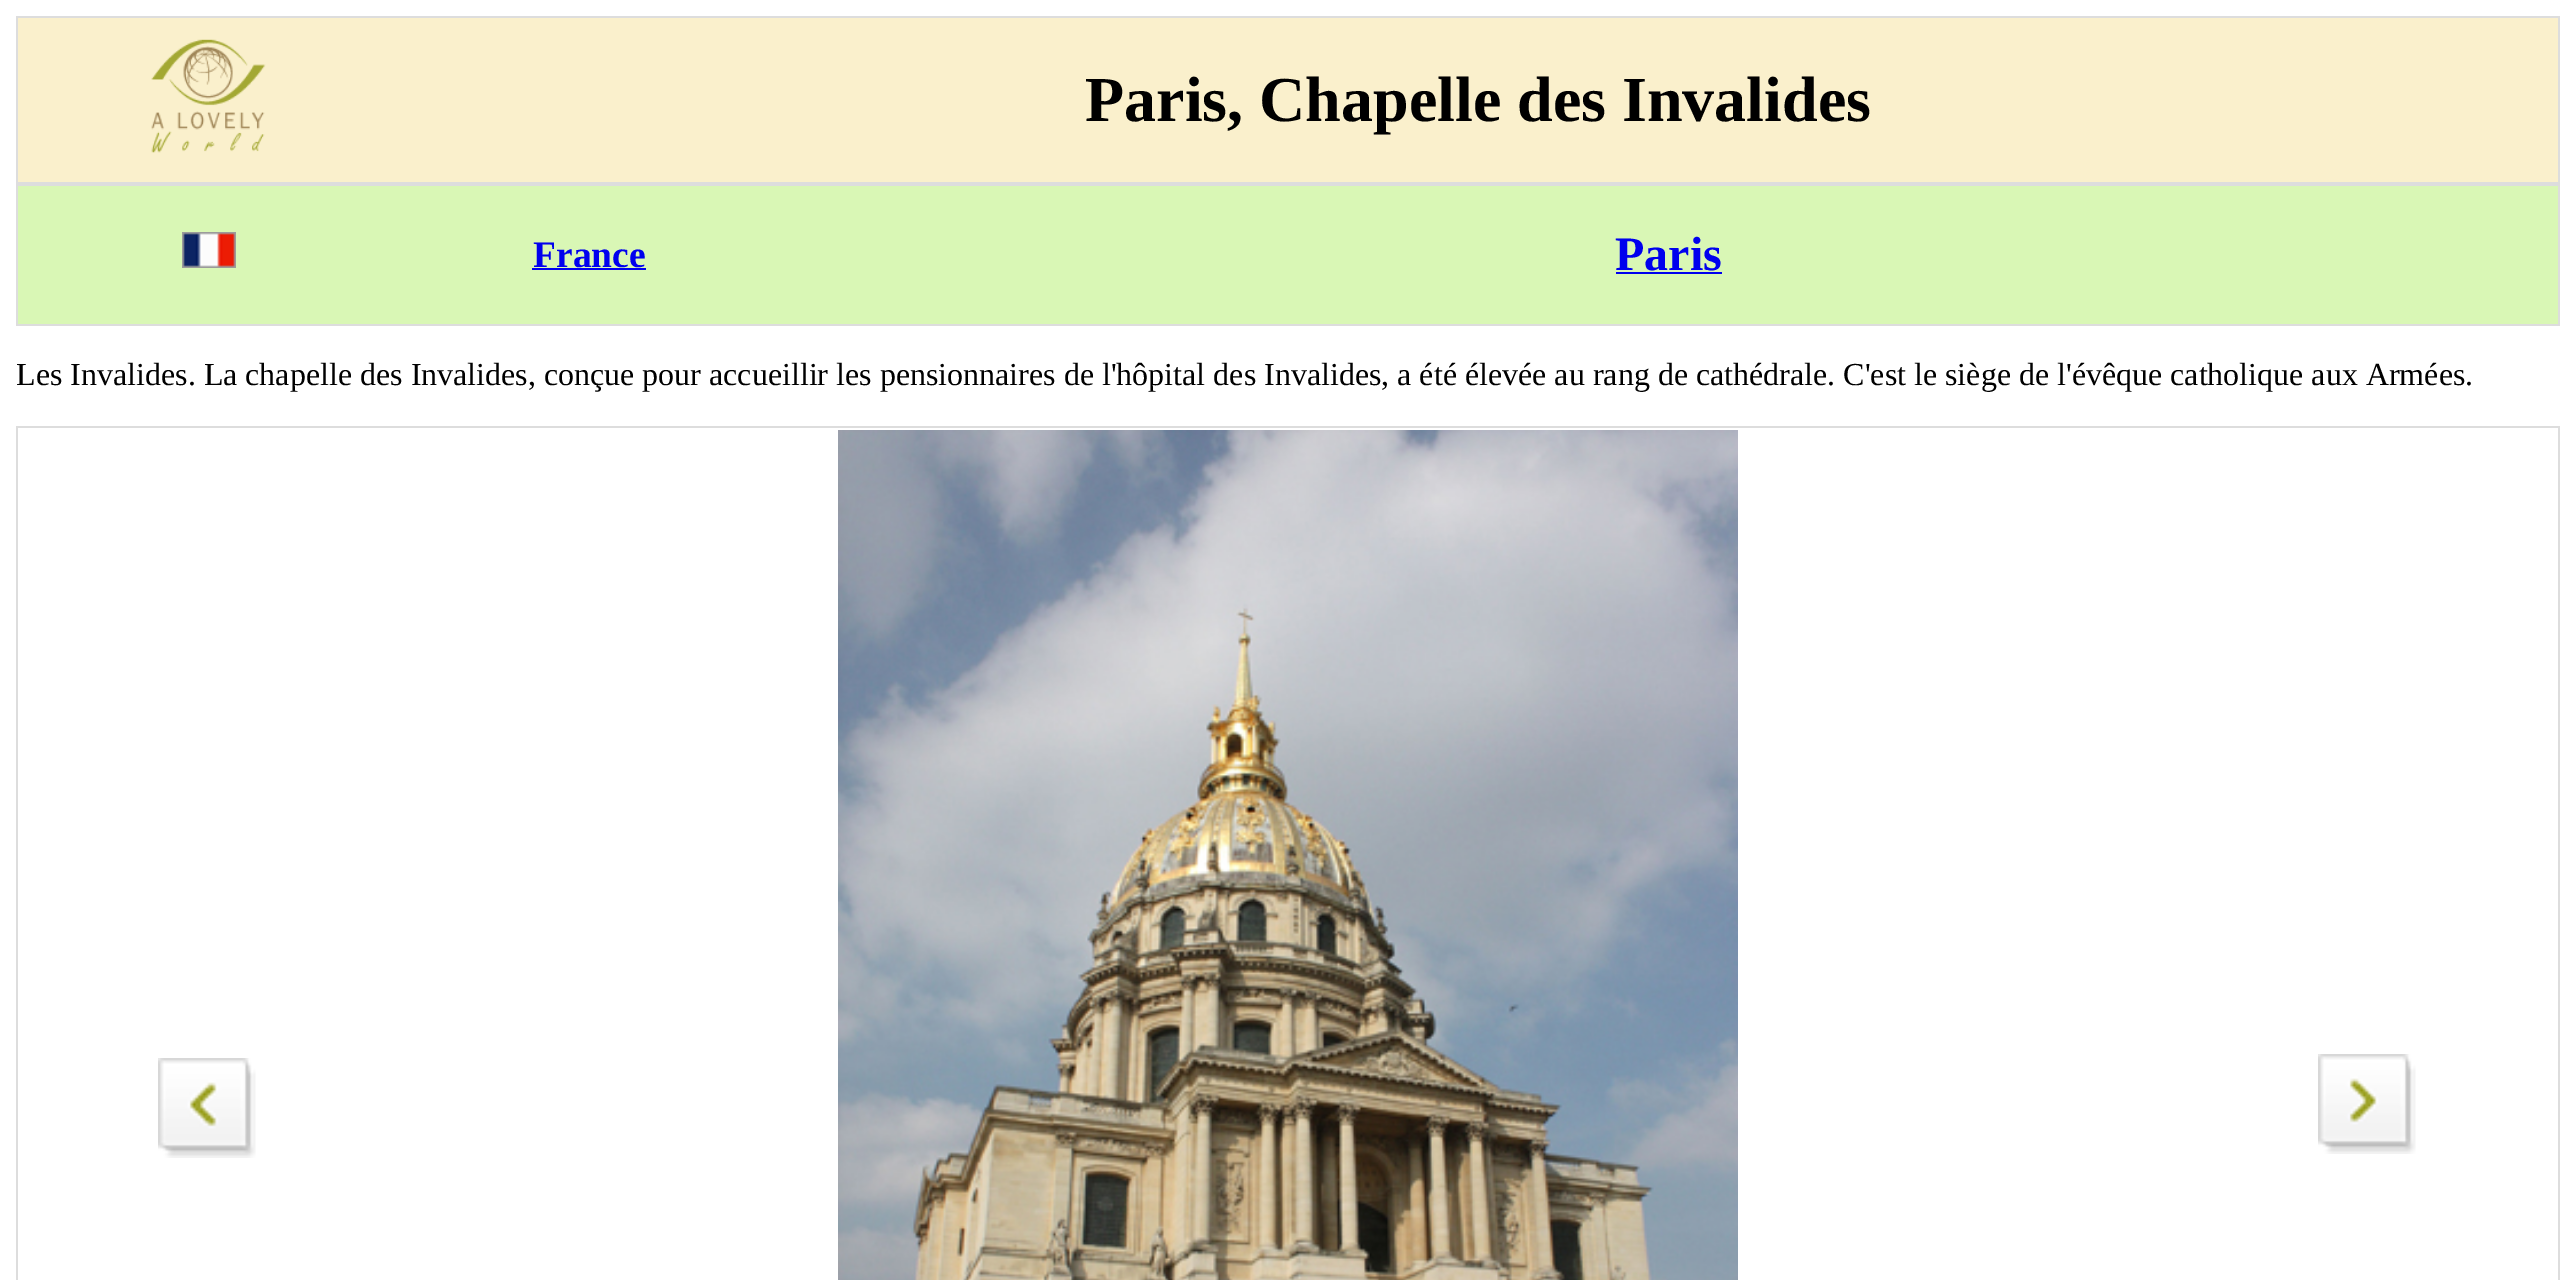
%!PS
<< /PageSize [2576 1280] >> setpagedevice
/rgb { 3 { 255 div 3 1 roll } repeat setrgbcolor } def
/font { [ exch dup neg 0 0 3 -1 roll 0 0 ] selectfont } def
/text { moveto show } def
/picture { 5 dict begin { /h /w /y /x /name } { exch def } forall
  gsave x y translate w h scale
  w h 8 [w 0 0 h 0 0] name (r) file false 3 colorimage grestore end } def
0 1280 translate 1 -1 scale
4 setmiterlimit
255 255 255 rgb
0 0 2576 1280 rectfill
250 240 204 rgb
18 18 2540 164 rectfill
221 221 221 rgb
16 16 2544 2 rectfill
2558 16 2 168 rectfill
16 182 2544 4 rectfill
16 16 2 168 rectfill
(img_01.rgb) 151 39 115 114 picture
217 247 181 rgb
18 186 2540 138 rectfill
221 221 221 rgb
2558 184 2 142 rectfill
16 324 2544 2 rectfill
16 184 2 142 rectfill
(img_02.rgb) 182 232 54 36 picture
0 0 238 rgb
532 268 114 2 rectfill
1616 272 106 2 rectfill
221 221 221 rgb
16 426 2544 2 rectfill
2558 426 2 854 rectfill
16 426 2 854 rectfill
(img_03.rgb) 158 1058 98 100 picture
(img_04.rgb) 838 430 900 850 picture
(img_05.rgb) 2318 1054 98 100 picture
/LiberationSerif-Bold 64 font
0 0 0 rgb
(Paris, Chapelle des Invalides) 1085 121 text
/LiberationSerif-Bold 37.5 font
0 0 238 rgb
(France) 533 267 text
/LiberationSerif-Bold 48 font
(Paris) 1615 270 text
/LiberationSerif-Regular 32 font
0 0 0 rgb
(Les Invalides. La chapelle des Invalides, conçue pour accueillir les pensionnaires de l'hôpital des Invalides, a été élevée au rang de cathédrale. C'est le siège de l'évêque catholique aux Armées.) 16 385 text
showpage
